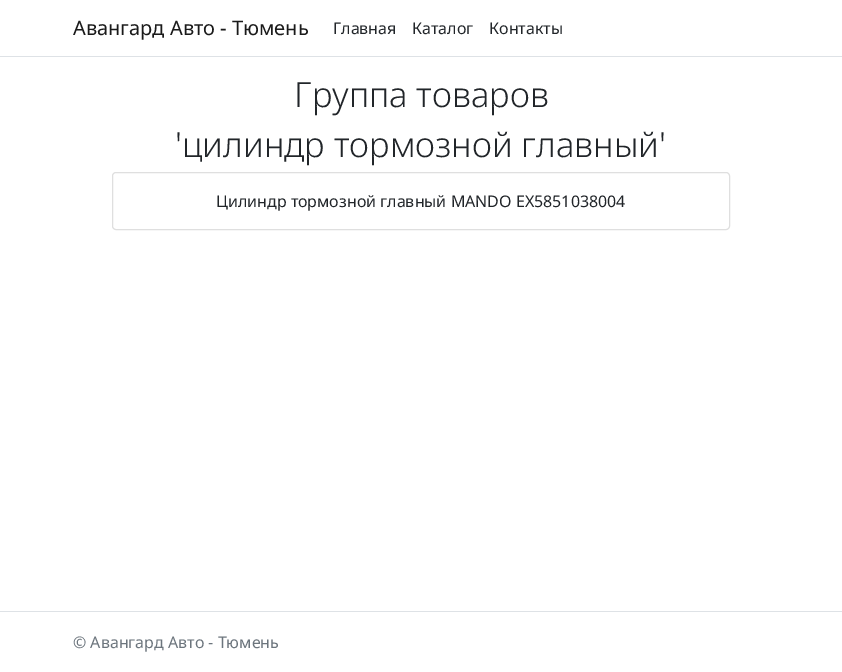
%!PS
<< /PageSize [842 672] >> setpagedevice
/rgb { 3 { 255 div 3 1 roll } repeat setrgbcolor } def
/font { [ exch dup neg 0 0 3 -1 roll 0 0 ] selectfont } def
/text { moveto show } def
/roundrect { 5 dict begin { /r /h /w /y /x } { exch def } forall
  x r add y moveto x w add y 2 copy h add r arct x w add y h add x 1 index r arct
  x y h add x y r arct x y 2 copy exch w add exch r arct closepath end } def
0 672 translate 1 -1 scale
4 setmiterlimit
255 255 255 rgb
0 0 842 672 rectfill
222 226 230 rgb
0 56 842 1 rectfill
223 223 223 rgb
112.5 172.5 617 57 3.5 roundrect stroke
222 226 230 rgb
0 611 842 1 rectfill
/NotoSans-Regular 20 font
26 26 26 rgb
(Авангард Авто - Тюмень) 73 35 text
/NotoSans-Regular 16 font
33 37 41 rgb
(Главная) 333 34 text
(Каталог) 412 34 text
(Контакты) 489 34 text
/NotoSans-Light 34.6 font
(Группа товаров) 294 107 text
('цилиндр тормозной главный') 175 157 text
/NotoSans-Regular 16 font
(Цилиндр тормозной главный MANDO EX5851038004) 216 207 text
108 117 125 rgb
(© Авангард Авто - Тюмень) 73 648 text
showpage
